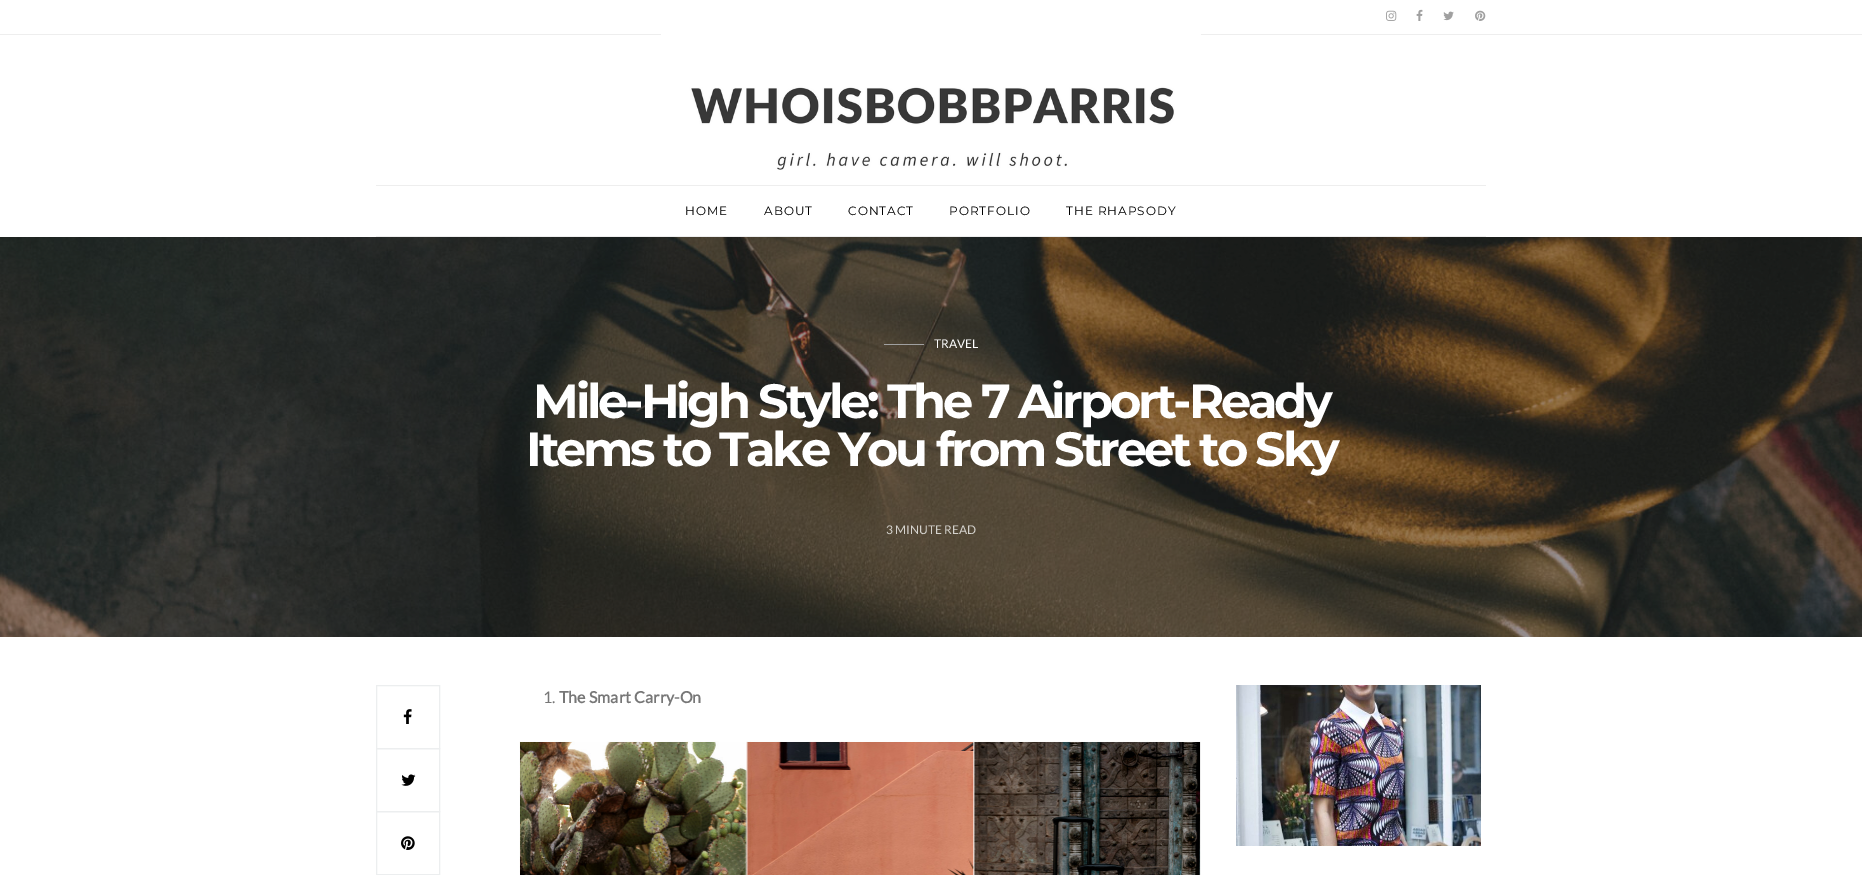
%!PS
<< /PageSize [1862 875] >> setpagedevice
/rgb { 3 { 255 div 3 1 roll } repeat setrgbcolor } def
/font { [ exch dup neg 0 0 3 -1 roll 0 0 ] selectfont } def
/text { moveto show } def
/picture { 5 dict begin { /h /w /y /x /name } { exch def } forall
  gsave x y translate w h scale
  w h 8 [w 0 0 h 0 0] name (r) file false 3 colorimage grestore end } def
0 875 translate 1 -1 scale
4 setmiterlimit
255 255 255 rgb
0 0 1862 875 rectfill
238 238 238 rgb
0 34 1862 1 rectfill
(img_01.rgb) 1386 10 11 11 picture
(img_02.rgb) 1416 9 7 12 picture
(img_03.rgb) 1443 11 11 10 picture
(img_04.rgb) 1475 10 11 11 picture
(img_05.rgb) 661 34 540 136 picture
376 185 1110 1 rectfill
376 236 1110 1 rectfill
(img_06.rgb) 0 237 1862 400 picture
160 160 160 rgb
884 344 40 1 rectfill
236 238 239 rgb
376.5 685.5 63 63 rectstroke
(img_07.rgb) 403 709 9 15 picture
376.5 748.5 63 63 rectstroke
(img_08.rgb) 401 774 15 12 picture
376.5 811.5 63 63 rectstroke
(img_09.rgb) 401 836 14 14 picture
(img_10.rgb) 519 741 682 134 picture
(img_11.rgb) 1236 685 245 161 picture
/Montserrat-Regular 12 font
0 0 0 rgb
685 215 moveto 1 0 (HOME) ashow
764 215 moveto 1 0 (ABOUT) ashow
848 215 moveto 1 0 (CONTACT) ashow
949 215 moveto 1 0 (PORTFOLIO) ashow
1066 215 moveto 1 0 (THE RHAPSODY) ashow
/Lato-Regular 12 font
255 255 255 rgb
(TRAVEL) 934 348 text
/Montserrat-Bold 48 font
533 418 moveto -3.2 0 (Mile-High Style: The 7 Airport-Ready) ashow
526 466 moveto -3.2 0 (Items to Take You from Street to Sky) ashow
/Lato-Regular 12 font
212 210 205 rgb
(3) 886 534 text
(MINUTE READ) 895 534 text
/Lato-Regular 16 font
119 119 119 rgb
(1.) 543 703 text
/Lato-Bold 16 font
(The Smart Carry-On) 559 703 text
showpage
